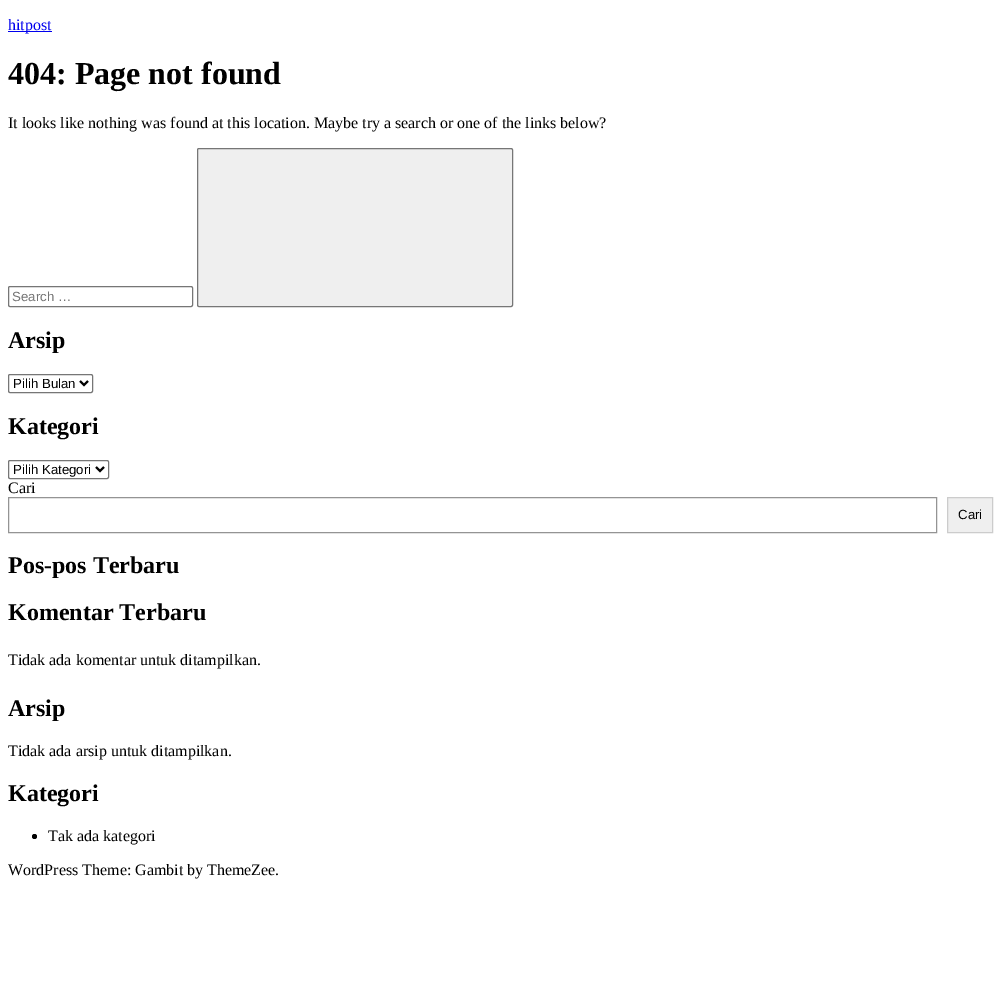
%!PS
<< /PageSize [999 998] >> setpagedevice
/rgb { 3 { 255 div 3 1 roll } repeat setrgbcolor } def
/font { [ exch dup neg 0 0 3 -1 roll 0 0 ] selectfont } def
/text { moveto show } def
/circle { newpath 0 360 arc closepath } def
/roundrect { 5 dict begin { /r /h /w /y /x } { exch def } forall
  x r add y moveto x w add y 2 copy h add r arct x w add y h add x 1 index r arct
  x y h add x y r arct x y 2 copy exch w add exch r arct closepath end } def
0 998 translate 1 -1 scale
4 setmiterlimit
255 255 255 rgb
0 0 999 998 rectfill
0 0 238 rgb
8 31 44 1 rectfill
118 118 118 rgb
8.5 286.5 184 20 1.5 roundrect stroke
239 239 239 rgb
197.5 148.5 315 158 1.5 roundrect gsave fill grestore
118 118 118 rgb
stroke
8.5 374.5 84 18 1.5 roundrect stroke
0 0 0 rgb
2 setlinewidth
80 381 moveto 4 4 rlineto 4 -4 rlineto stroke
118 118 118 rgb
1 setlinewidth
8.5 460.5 100 18 1.5 roundrect stroke
0 0 0 rgb
2 setlinewidth
96 467 moveto 4 4 rlineto 4 -4 rlineto stroke
148 148 148 rgb
1 setlinewidth
8.5 497.5 928 35 rectstroke
239 239 239 rgb
947.5 497.5 moveto 45 0 rlineto 0 35 rlineto -45 0 rlineto closepath gsave fill grestore
204 204 204 rgb
stroke
0 0 0 rgb
34.5 836.5 2.5 circle fill
/LiberationSerif-Regular 16 font
0 0 238 rgb
(hitpost) 8 30 text
/LiberationSerif-Bold 32 font
0 0 0 rgb
(404: Page not found) 8 84 text
/LiberationSerif-Regular 16 font
(It looks like nothing was found at this location. Maybe try a search or one of the links below?) 8 128 text
/LiberationSans-Regular 13.25 font
117 117 117 rgb
(Search …) 12 301 text
/LiberationSerif-Bold 24 font
0 0 0 rgb
(Arsip) 8 348 text
/LiberationSans-Regular 13.25 font
(Pilih Bulan) 13 388 text
/LiberationSerif-Bold 24 font
(Kategori) 8 434 text
/LiberationSans-Regular 13.25 font
(Pilih Kategori) 13 474 text
/LiberationSerif-Regular 16 font
(Cari) 8 493 text
/LiberationSans-Regular 13.25 font
(Cari) 958 519 text
/LiberationSerif-Bold 24 font
(Pos-pos Terbaru) 8 573 text
(Komentar Terbaru) 8 620 text
/LiberationSerif-Regular 16 font
(Tidak ada komentar untuk ditampilkan.) 8 665 text
/LiberationSerif-Bold 24 font
(Arsip) 8 716 text
/LiberationSerif-Regular 16 font
(Tidak ada arsip untuk ditampilkan.) 8 756 text
/LiberationSerif-Bold 24 font
(Kategori) 8 801 text
/LiberationSerif-Regular 16 font
(Tak ada kategori) 48 841 text
(WordPress Theme: Gambit by ThemeZee.) 8 875 text
showpage
